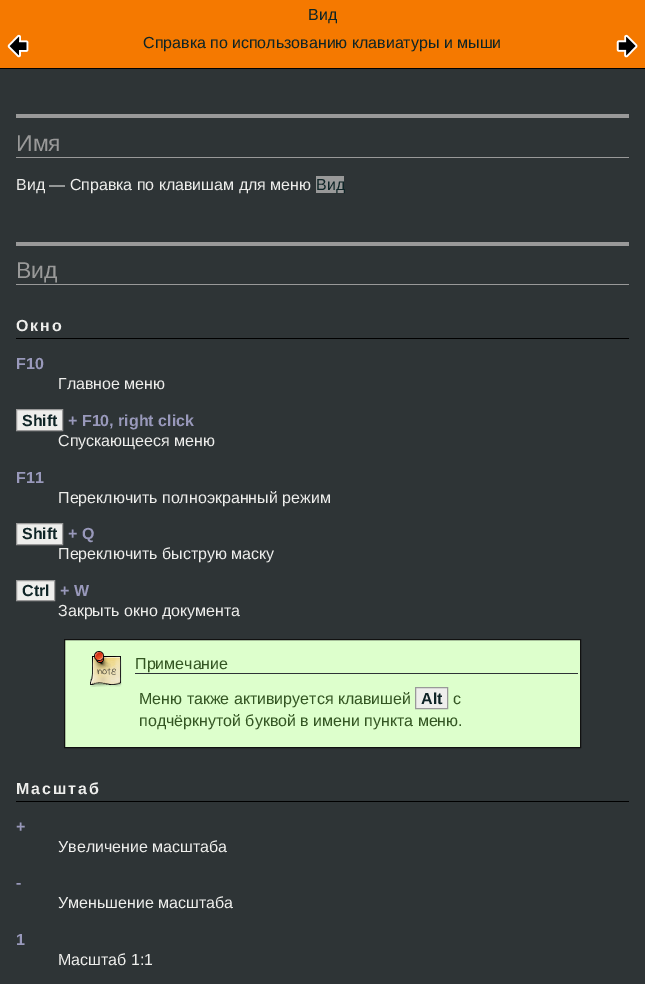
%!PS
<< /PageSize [645 984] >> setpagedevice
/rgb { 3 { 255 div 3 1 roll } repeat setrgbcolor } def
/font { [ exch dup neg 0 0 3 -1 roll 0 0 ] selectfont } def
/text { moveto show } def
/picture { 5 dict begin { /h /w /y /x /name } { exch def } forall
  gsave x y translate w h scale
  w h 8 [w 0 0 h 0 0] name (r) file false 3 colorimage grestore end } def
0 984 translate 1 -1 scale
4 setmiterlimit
46 52 54 rgb
0 0 645 984 rectfill
245 121 0 rgb
0 0 645 68 rectfill
0 0 0 rgb
0 68 645 1 rectfill
(img_01.rgb) 7 34 22 24 picture
(img_02.rgb) 616 34 22 24 picture
153 153 153 rgb
16 114 613 4 rectfill
16 157 613 1 rectfill
316 176 28 17 rectfill
16 242 613 4 rectfill
16 284 613 1 rectfill
0 0 0 rgb
16 338 613 1 rectfill
238 238 236 rgb
16.5 409.5 moveto 46 0 rlineto 0 21 rlineto -46 0 rlineto closepath gsave fill grestore
153 153 153 rgb
stroke
238 238 236 rgb
16.5 523.5 moveto 46 0 rlineto 0 21 rlineto -46 0 rlineto closepath gsave fill grestore
153 153 153 rgb
stroke
238 238 236 rgb
16.5 580.5 moveto 38 0 rlineto 0 20 rlineto -38 0 rlineto closepath gsave fill grestore
153 153 153 rgb
stroke
221 255 204 rgb
64.5 639.5 moveto 516 0 rlineto 0 108 rlineto -516 0 rlineto closepath gsave fill grestore
17 17 17 rgb
stroke
(img_03.rgb) 90 651 32 36 picture
46 52 54 rgb
135 673 443 1 rectfill
238 238 236 rgb
415.5 687.5 moveto 32 0 rlineto 0 21 rlineto -32 0 rlineto closepath gsave fill grestore
153 153 153 rgb
stroke
0 0 0 rgb
16 801 613 1 rectfill
/LiberationSans-Regular 16 font
14 36 38 rgb
(Вид) 308 20 text
(Справка по использованию клавиатуры и мыши) 143 48 text
/LiberationSans-Regular 23 font
153 153 153 rgb
(Имя) 16 151 text
/LiberationSans-Regular 16 font
238 238 236 rgb
(Вид — Справка по клавишам для меню) 16 190 text
14 36 38 rgb
(Вид) 316 190 text
/LiberationSans-Regular 23 font
153 153 153 rgb
(Вид) 16 278 text
/LiberationSans-Bold 16 font
238 238 236 rgb
16 331 moveto 2 0 (Окно) ashow
153 153 187 rgb
(F10) 16 369 text
/LiberationSans-Regular 16 font
238 238 236 rgb
(Главное меню) 58 389 text
/LiberationSans-Bold 16 font
14 36 38 rgb
(Shift) 22 426 text
153 153 187 rgb
(+ F10, right click) 68 426 text
/LiberationSans-Regular 16 font
238 238 236 rgb
(Спускающееся меню) 58 446 text
/LiberationSans-Bold 16 font
153 153 187 rgb
(F11) 16 483 text
/LiberationSans-Regular 16 font
238 238 236 rgb
(Переключить полноэкранный режим) 58 503 text
/LiberationSans-Bold 16 font
14 36 38 rgb
(Shift) 22 539 text
153 153 187 rgb
(+ Q) 68 539 text
/LiberationSans-Regular 16 font
238 238 236 rgb
(Переключить быструю маску) 58 559 text
/LiberationSans-Bold 16 font
14 36 38 rgb
(Ctrl) 22 596 text
153 153 187 rgb
(+ W) 60 596 text
/LiberationSans-Regular 16 font
238 238 236 rgb
(Закрыть окно документа) 58 616 text
51 85 34 rgb
(Примечание) 135 669 text
(Меню также активируется клавишей) 139 704 text
/LiberationSans-Bold 16 font
14 36 38 rgb
(Alt) 421 704 text
/LiberationSans-Regular 16 font
51 85 34 rgb
(с) 453 704 text
(подчёркнутой буквой в имени пункта меню.) 139 726 text
/LiberationSans-Bold 16 font
238 238 236 rgb
16 794 moveto 2 0 (Масштаб) ashow
153 153 187 rgb
(+) 16 832 text
/LiberationSans-Regular 16 font
238 238 236 rgb
(Увеличение масштаба) 58 852 text
/LiberationSans-Bold 16 font
153 153 187 rgb
(-) 16 888 text
/LiberationSans-Regular 16 font
238 238 236 rgb
(Уменьшение масштаба) 58 908 text
/LiberationSans-Bold 16 font
153 153 187 rgb
(1) 16 945 text
/LiberationSans-Regular 16 font
238 238 236 rgb
(Масштаб 1:1) 58 965 text
showpage
